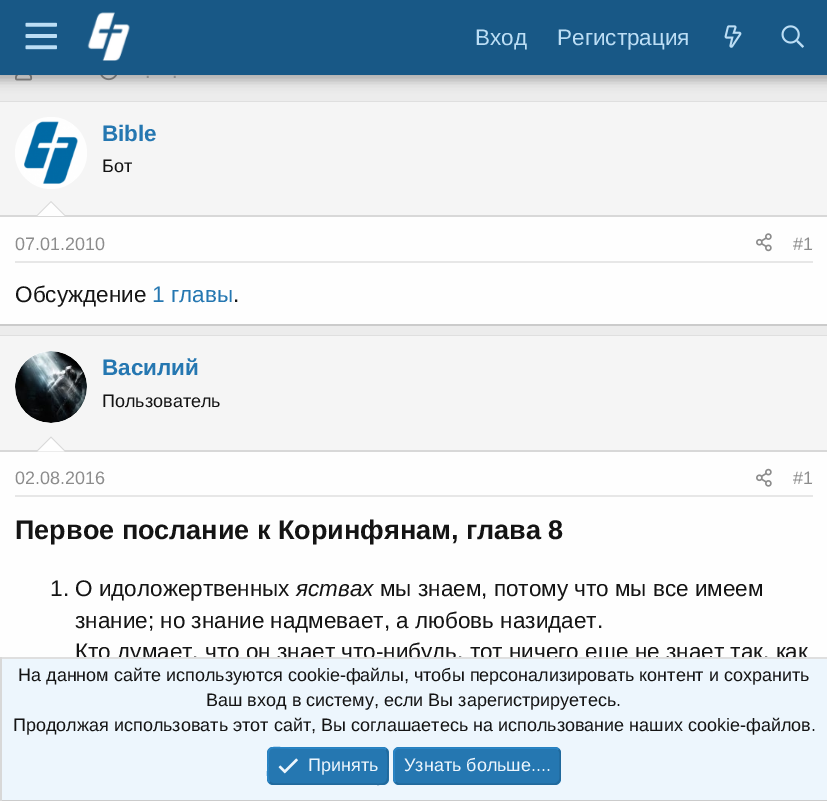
%!PS
<< /PageSize [827 801] /PageUsesTransparency true >> setpagedevice
/rgb { 3 { 255 div 3 1 roll } repeat setrgbcolor } def
/font { [ exch dup neg 0 0 3 -1 roll 0 0 ] selectfont } def
/text { moveto show } def
/alpha { dup .setfillconstantalpha .setstrokeconstantalpha } def
/circle { newpath 0 360 arc closepath } def
/roundrect { 5 dict begin { /r /h /w /y /x } { exch def } forall
  x r add y moveto x w add y 2 copy h add r arct x w add y h add x 1 index r arct
  x y h add x y r arct x y 2 copy exch w add exch r arct closepath end } def
/shadow { 12 dict begin { /a /b /q /h /w /y /x } { exch def } forall gsave /was 0 def
  9 -2 -9 { dup b mul 4 div /e exch def 1 sub .425 mul 2.718 exch exp 1 add a .99 .min exch div /now exch def
    1 1 now sub 1 was sub div sub alpha /was now def
    w h .min e 2 mul add 0 gt { x e sub y e sub w e 2 mul add h e 2 mul add
      q e add b .6 mul add w h .min 2 div e add .min 0 .max roundrect fill } if } for grestore end } def
/picture { 5 dict begin { /h /w /y /x /name } { exch def } forall
  gsave x y translate w h scale
  w h 8 [w 0 0 h 0 0] name (r) file false 3 colorimage grestore end } def
0 .pushpdf14devicefilter
0 801 translate 1 -1 scale
4 setmiterlimit
236 236 236 rgb
0 0 827 801 rectfill
(img_05.rgb) 15 75 18 6 picture
(img_06.rgb) 100 75 17 6 picture
0 0 0 rgb
-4 -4 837 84 0 6 0.3 shadow
24 88 134 rgb
0 0 827 75 rectfill
(img_01.rgb) 25 22 32 28 picture
(img_02.rgb) 87 12 43 49 picture
(img_03.rgb) 724 25 18 23 picture
(img_04.rgb) 781 25 23 23 picture
254 254 254 rgb
0 217 827 107 rectfill
223 223 223 rgb
0 101 827 1 rectfill
203 203 203 rgb
0 324 827 2 rectfill
245 245 245 rgb
0 102 827 113 rectfill
216 216 216 rgb
0 215 827 2 rectfill
254 254 254 rgb
51 153 36 circle fill
(img_07.rgb) 24 121 54 63 picture
216 216 216 rgb
66 216 moveto -30 0 rlineto 15 -15 rlineto closepath fill
254 254 254 rgb
64.5 216 moveto -27 0 rlineto 13.5 -13.5 rlineto closepath fill
231 231 231 rgb
15 261 798 2 rectfill
(img_08.rgb) 756 233 16 19 picture
254 254 254 rgb
0 452 827 205 rectfill
223 223 223 rgb
0 335 827 1 rectfill
245 245 245 rgb
0 336 827 114 rectfill
216 216 216 rgb
0 450 827 2 rectfill
254 254 254 rgb
51 387 36 circle fill
(img_09.rgb) 15 351 72 72 picture
216 216 216 rgb
66 451.5 moveto -30 0 rlineto 15 -15 rlineto closepath fill
254 254 254 rgb
64.5 451.5 moveto -27 0 rlineto 13.5 -13.5 rlineto closepath fill
231 231 231 rgb
15 495 798 2 rectfill
(img_10.rgb) 756 468 16 19 picture
203 203 203 rgb
0 800 827 1 rectfill
/LiberationSans-Regular 22.5 font
188 222 245 rgb
(Вход) 475 45 text
(Регистрация) 557 45 text
/LiberationSans-Regular 20 font
140 140 140 rgb
(.) 145 78 text
(.) 172 78 text
/LiberationSans-Bold 22.5 font
37 119 177 rgb
(Bible) 102 141 text
/LiberationSans-Regular 18 font
20 20 20 rgb
(Бот) 102 172 text
140 140 140 rgb
(07.01.2010) 15 250 text
(#1) 793 250 text
/LiberationSans-Regular 22.5 font
20 20 20 rgb
(Обсуждение) 15 302 text
37 119 177 rgb
(1 главы) 152 302 text
20 20 20 rgb
(.) 233 302 text
/LiberationSans-Bold 22.5 font
37 119 177 rgb
(Василий) 102 375 text
/LiberationSans-Regular 18 font
20 20 20 rgb
(Пользователь) 102 407 text
140 140 140 rgb
(02.08.2016) 15 484 text
(#1) 793 484 text
/LiberationSans-Bold 27 font
20 20 20 rgb
(Первое послание к Коринфянам, глава 8) 15 539 text
/LiberationSans-Regular 22.5 font
(1. О идоложертвенных) 50 596 text
/LiberationSans-Italic 22.5 font
(яствах) 296 596 text
/LiberationSans-Regular 22.5 font
(мы знаем, потому что мы все имеем) 380 596 text
(знание; но знание надмевает, а любовь назидает.) 75 628 text
(Кто думает, что он знает что-нибудь, тот ничего еще не знает так, как) 75 659 text
237 246 253 rgb
2 659 825 141 rectfill
223 223 223 rgb
0 657 827 2 rectfill
216 216 216 rgb
0 657 2 144 rectfill
/LiberationSans-Regular 18 font
20 20 20 rgb
(На данном сайте используются cookie-файлы, чтобы персонализировать контент и сохранить) 18 681 text
(Ваш вход в систему, если Вы зарегистрируетесь.) 206 706 text
(Продолжая использовать этот сайт, Вы соглашаетесь на использование наших cookie-файлов.) 13 731 text
37 119 177 rgb
267 747 122 38 6 roundrect fill
33 105 156 rgb
1.5 setlinewidth
386 749.5 moveto 3 2.5 2 12.5 2 16.5 rcurveto 0 22 1 18 -24 18 rcurveto -91 0 rlineto -1.5 -0.5 -2.5 -1 -3.5 -2 rcurveto stroke
41 133 198 rgb
269.5 782 moveto -3 -2.5 -1.5 -12.5 -1.5 -16 rcurveto 0 -22.5 -1.5 -18 23 -18 rcurveto 91.5 0 rlineto 1.5 0 2.5 0.5 3.5 1.5 rcurveto stroke
(img_11.rgb) 278 758 20 16 picture
237 246 253 rgb
(Принять) 308 771 text
37 119 177 rgb
393 747 168 38 6 roundrect fill
33 105 156 rgb
558.5 749.5 moveto 1 1 1.5 2 1.5 3.5 rcurveto 0 25.5 rlineto 0 1.5 -0.5 2.5 -1.5 3.5 rcurveto -1 1 -2 2 -3.5 2 rcurveto -156 0 rlineto -1.5 0 -2.5 -1 -3.5 -2 rcurveto stroke
41 133 198 rgb
395.5 782 moveto -1 -1 -1.5 -2 -1.5 -3.5 rcurveto 0 -25.5 rlineto 0 -1.5 0.5 -2.5 1.5 -3.5 rcurveto 1 -1 2 -1.5 3.5 -1.5 rcurveto 156 0 rlineto 1.5 0 2.5 0.5 3.5 1.5 rcurveto stroke
237 246 253 rgb
(Узнать больше....) 404 771 text
.poppdf14devicefilter showpage
